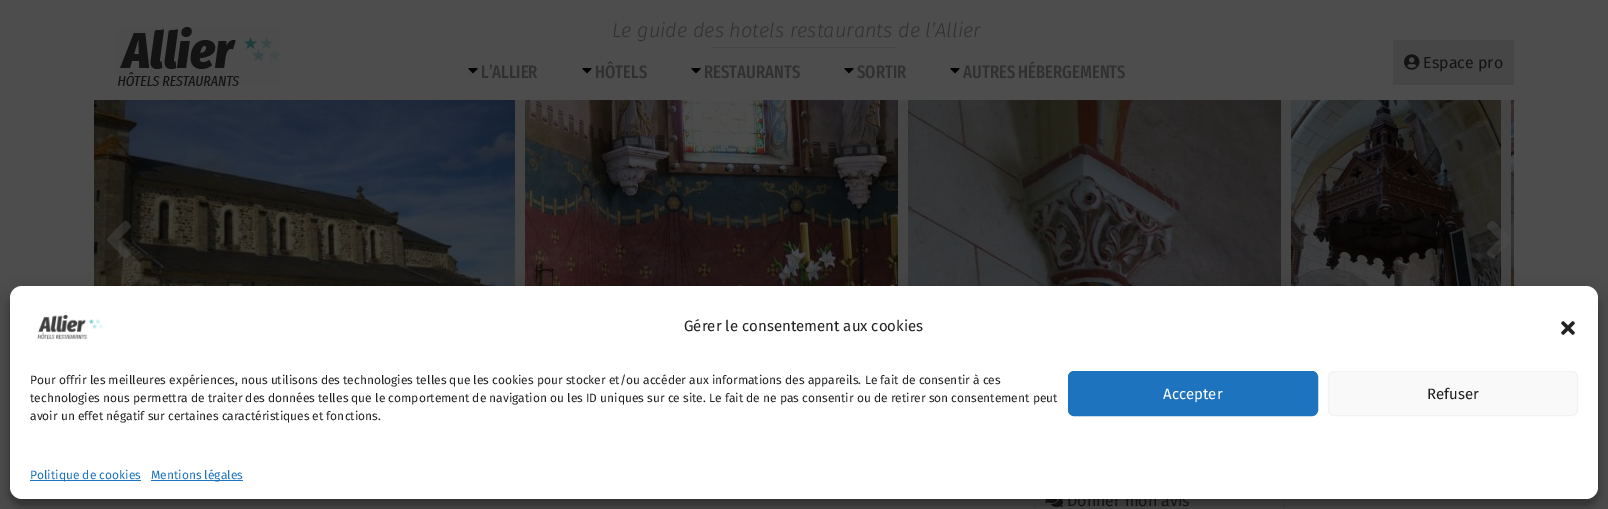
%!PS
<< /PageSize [1608 509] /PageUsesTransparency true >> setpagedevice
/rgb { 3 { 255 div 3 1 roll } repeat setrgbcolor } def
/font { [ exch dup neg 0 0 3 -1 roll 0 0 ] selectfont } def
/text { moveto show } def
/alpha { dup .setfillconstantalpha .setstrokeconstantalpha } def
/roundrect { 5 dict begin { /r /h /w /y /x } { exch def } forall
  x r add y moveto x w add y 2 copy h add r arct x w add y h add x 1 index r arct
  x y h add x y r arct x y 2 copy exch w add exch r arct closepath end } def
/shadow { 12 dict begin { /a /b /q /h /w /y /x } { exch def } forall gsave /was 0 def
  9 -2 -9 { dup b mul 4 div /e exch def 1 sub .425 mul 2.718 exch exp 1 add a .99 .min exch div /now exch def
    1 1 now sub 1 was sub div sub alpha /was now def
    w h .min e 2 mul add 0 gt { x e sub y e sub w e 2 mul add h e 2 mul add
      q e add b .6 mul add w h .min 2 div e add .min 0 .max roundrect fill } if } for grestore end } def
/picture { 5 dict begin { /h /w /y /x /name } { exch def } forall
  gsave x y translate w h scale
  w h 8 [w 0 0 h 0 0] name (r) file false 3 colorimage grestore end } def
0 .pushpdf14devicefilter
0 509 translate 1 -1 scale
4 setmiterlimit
77 77 77 rgb
0 0 1608 509 rectfill
(img_01.rgb) 118 27 163 59 picture
69 69 69 rgb
712 47 185 1 rectfill
70 70 70 rgb
1393 40 121 45 rectfill
(img_02.rgb) 1404 54 16 16 picture
(img_03.rgb) 468 68 10 6 picture
(img_03.rgb) 582 68 10 6 picture
(img_03.rgb) 691 68 10 6 picture
(img_03.rgb) 844 68 10 6 picture
(img_03.rgb) 950 68 10 6 picture
515 100 996 186 rectfill
(img_04.rgb) 94 100 421 186 picture
(img_05.rgb) 525 100 373 186 picture
(img_06.rgb) 908 100 373 186 picture
(img_07.rgb) 1291 100 210 186 picture
(img_08.rgb) 1511 100 3 186 picture
(img_09.rgb) 107 220 24 39 picture
(img_10.rgb) 1487 220 24 39 picture
71 71 71 rgb
1034.5 478.5 249 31 rectstroke
(img_11.rgb) 1045 499 18 8 picture
0 0 0 rgb
10 292 1588 213 12 3 0.23 shadow
10 296 1588 213 12 10 0.19 shadow
/FiraSans-LightItalic 20 font
48 48 48 rgb
(Le guide des hotels restaurants de l’Allier) 612 37 text
/FiraSans-Regular 16 font
19 19 19 rgb
(Espace pro) 1423 68 text
/FiraSansExtraCondensed-Medium 18 font
48 48 48 rgb
(L’ALLIER) 481 78 text
(HÔTELS) 595 78 text
(RESTAURANTS) 704 78 text
(SORTIR) 857 78 text
(AUTRES HÉBERGEMENTS) 963 78 text
/FiraSans-Regular 16 font
19 19 19 rgb
(Donner mon avis) 1067 506 text
255 255 255 rgb
10 286 1588 213 12 roundrect fill
(img_12.rgb) 37 314 67 26 picture
/FiraSans-Regular 15 font
34 34 34 rgb
(Gérer le consentement aux cookies) 684 331 text
(img_13.rgb) 1561 321 14 14 picture
/FiraSans-Regular 12 font
(Pour offrir les meilleures expériences, nous utilisons des technologies telles que les cookies pour stocker et/ou accéder aux informations des appareils. Le fait de consentir à ces) 30 384 text
(technologies nous permettra de traiter des données telles que le comportement de navigation ou les ID uniques sur ce site. Le fait de ne pas consentir ou de retirer son consentement peut) 30 402 text
(avoir un effet négatif sur certaines caractéristiques et fonctions.) 30 420 text
30 115 190 rgb
1068.5 371.5 249 44 5.5 roundrect gsave fill grestore
stroke
/FiraSans-Regular 15 font
255 255 255 rgb
(Accepter) 1163 399 text
249 249 249 rgb
1328.5 371.5 249 44 5.5 roundrect gsave fill grestore
242 242 242 rgb
stroke
34 34 34 rgb
(Refuser) 1427 399 text
30 115 190 rgb
30 480 111 1 rectfill
/FiraSans-Regular 12 font
(Politique de cookies) 30 479 text
151 480 92 1 rectfill
(Mentions légales) 151 479 text
.poppdf14devicefilter showpage
